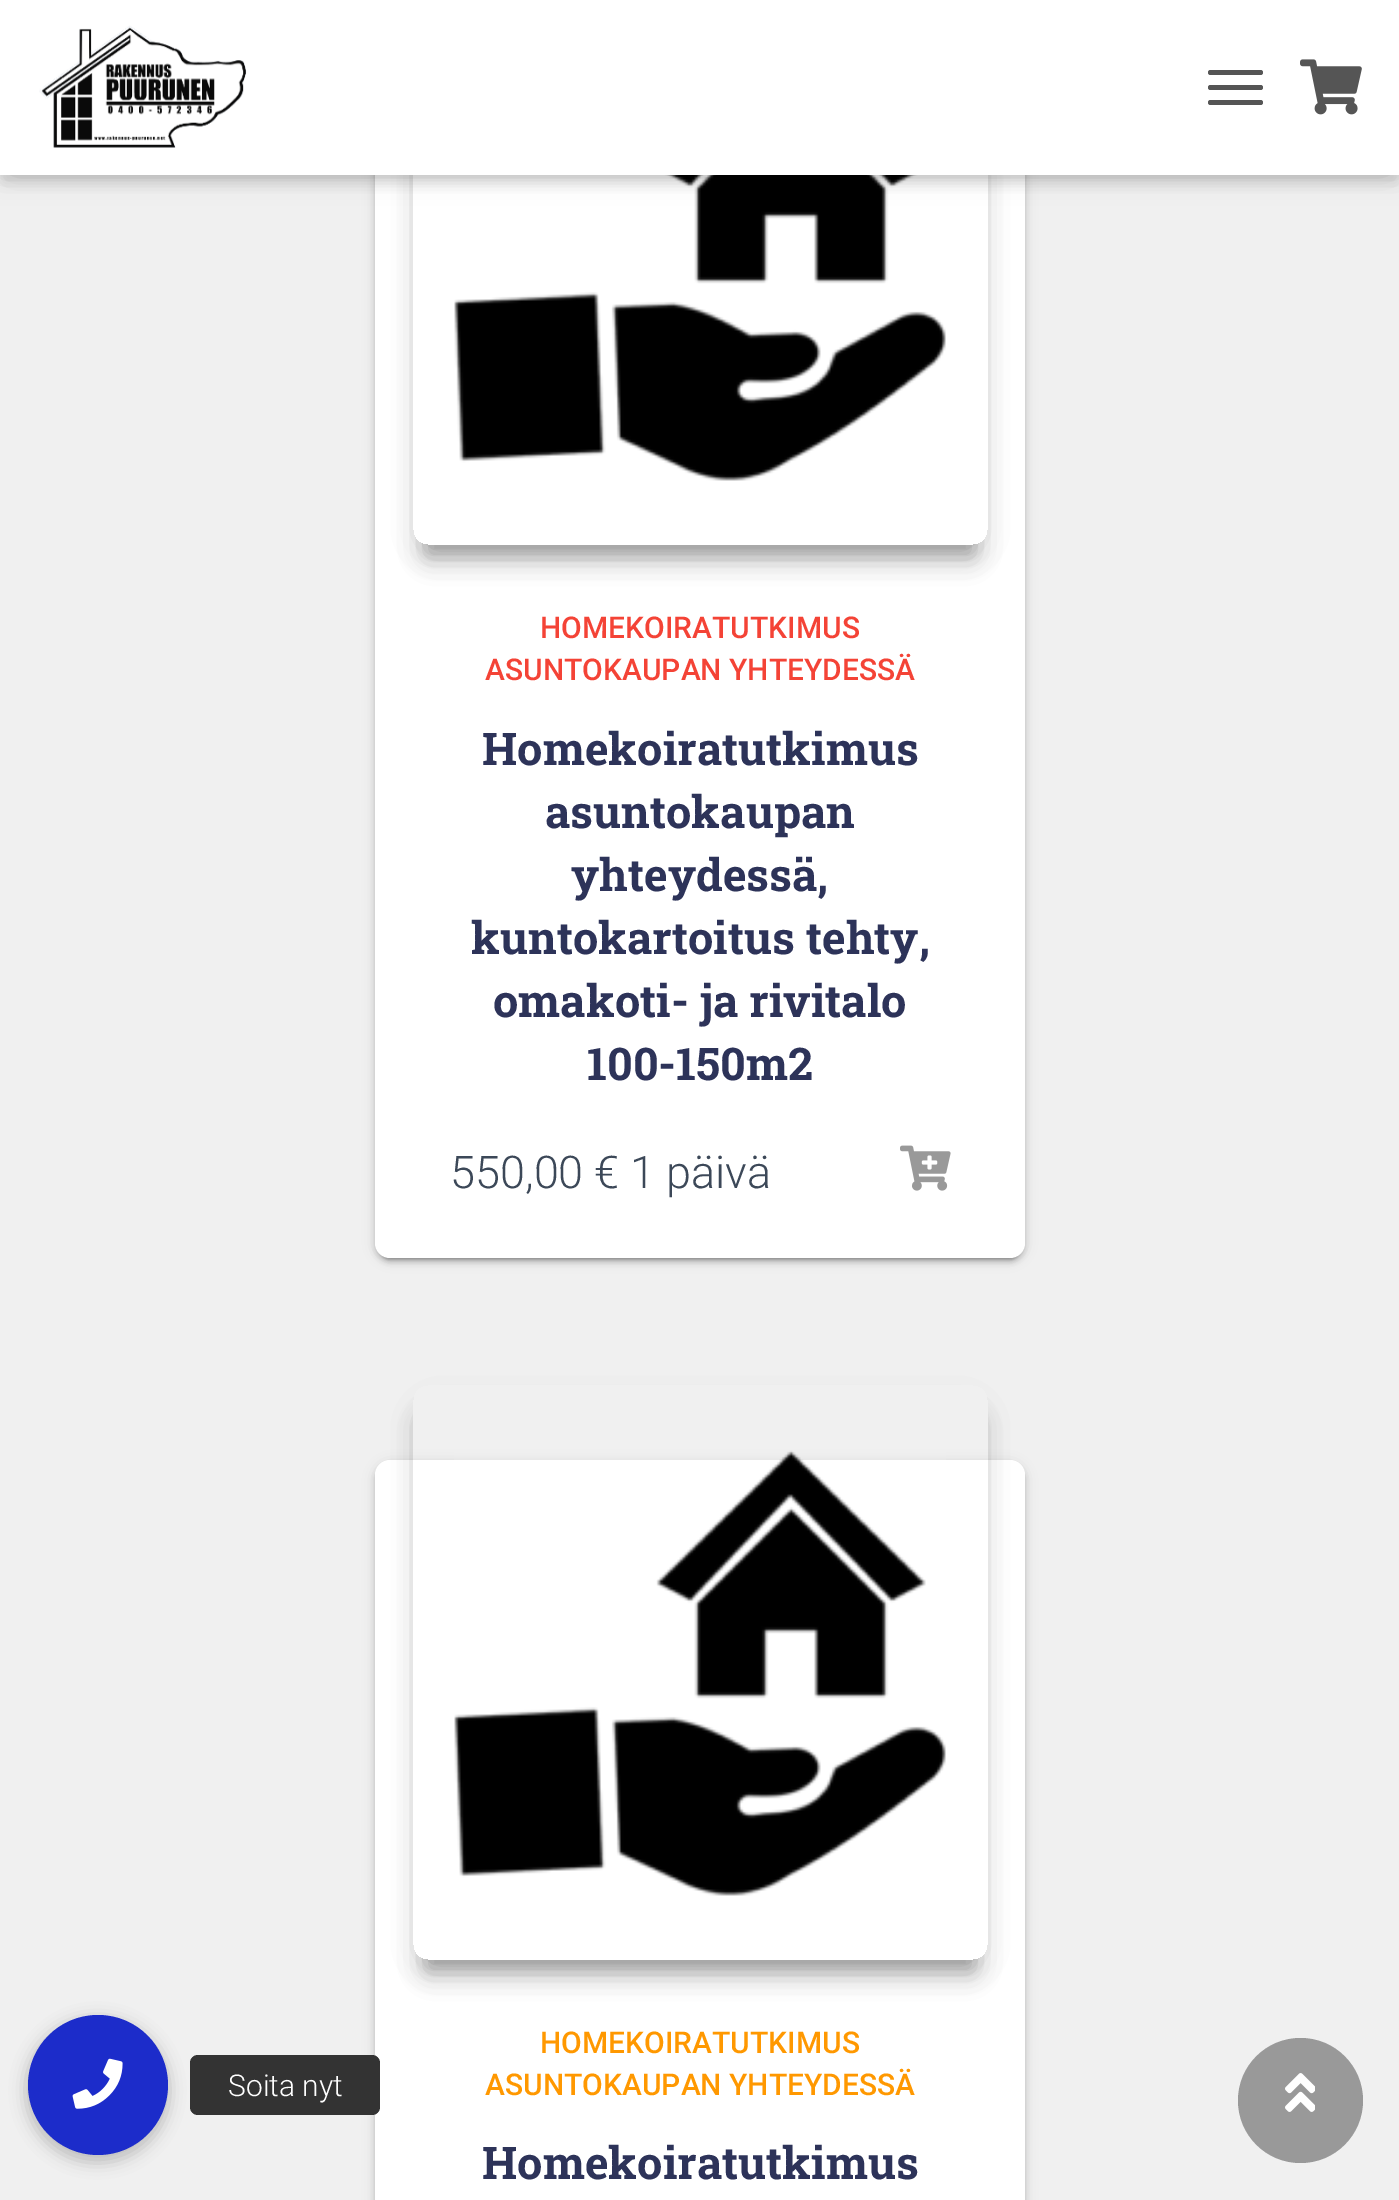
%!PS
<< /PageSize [1399 2200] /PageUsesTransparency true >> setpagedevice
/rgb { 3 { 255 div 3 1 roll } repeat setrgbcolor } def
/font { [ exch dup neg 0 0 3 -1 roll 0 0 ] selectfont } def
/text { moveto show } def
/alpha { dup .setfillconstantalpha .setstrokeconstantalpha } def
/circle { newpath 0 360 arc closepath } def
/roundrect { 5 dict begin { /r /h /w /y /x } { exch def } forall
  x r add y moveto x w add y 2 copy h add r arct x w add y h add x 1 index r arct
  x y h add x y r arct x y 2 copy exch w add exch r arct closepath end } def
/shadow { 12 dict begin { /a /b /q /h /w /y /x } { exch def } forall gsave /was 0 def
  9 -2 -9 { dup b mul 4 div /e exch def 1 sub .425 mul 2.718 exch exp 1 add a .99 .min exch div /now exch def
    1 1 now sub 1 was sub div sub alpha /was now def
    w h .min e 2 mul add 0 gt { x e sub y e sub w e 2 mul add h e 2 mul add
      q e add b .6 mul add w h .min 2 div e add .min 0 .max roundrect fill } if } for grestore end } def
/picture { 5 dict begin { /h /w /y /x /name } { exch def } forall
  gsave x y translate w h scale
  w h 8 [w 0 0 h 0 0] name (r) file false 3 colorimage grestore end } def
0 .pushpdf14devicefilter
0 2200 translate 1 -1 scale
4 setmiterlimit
240 240 240 rgb
0 0 1399 2200 rectfill
0 0 0 rgb
25 2018 145 145 72.5 7.5 0.2 shadow
28 44 202 rgb
98 2085 70 circle fill
(img_01.rgb) 72 2058 51 51 picture
0 0 0 rgb
375 1463 650 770 15 6 0.12 shadow
375 1465 650 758 15 2.5 0.14 shadow
255 255 255 rgb
375 1460 650 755 15 roundrect fill
51 51 51 rgb
190 2055 190 60 8 roundrect fill
0 0 0 rgb
375 48 650 1212 15 6 0.12 shadow
380 58 640 1202 10 1 0.2 shadow
375 50 650 1213 15 2.5 0.14 shadow
255 255 255 rgb
375 45 650 1213 15 roundrect fill
gsave
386 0 moveto 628 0 rlineto 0 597 rlineto -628 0 rlineto closepath 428 -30 moveto 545 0 rlineto 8.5 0 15 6.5 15 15 rcurveto 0 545 rlineto 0 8.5 -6.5 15 -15 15 rcurveto -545 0 rlineto -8.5 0 -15 -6.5 -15 -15 rcurveto 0 -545 rlineto 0 -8.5 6.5 -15 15 -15 rcurveto closepath eoclip newpath
0 0 0 rgb
425 8 550 550 2.5 12.5 0.2 shadow
grestore
gsave
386 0 moveto 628 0 rlineto 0 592 rlineto -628 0 rlineto closepath 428 -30 moveto 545 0 rlineto 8.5 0 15 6.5 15 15 rcurveto 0 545 rlineto 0 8.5 -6.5 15 -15 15 rcurveto -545 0 rlineto -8.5 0 -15 -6.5 -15 -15 rcurveto 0 -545 rlineto 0 -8.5 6.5 -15 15 -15 rcurveto closepath eoclip newpath
0 0 0 rgb
425 3 550 550 2.5 12.5 0.2 shadow
grestore
gsave
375 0 moveto 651 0 rlineto 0 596 rlineto -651 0 rlineto closepath 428 -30 moveto 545 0 rlineto 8.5 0 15 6.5 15 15 rcurveto 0 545 rlineto 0 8.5 -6.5 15 -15 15 rcurveto -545 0 rlineto -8.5 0 -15 -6.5 -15 -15 rcurveto 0 -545 rlineto 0 -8.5 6.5 -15 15 -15 rcurveto closepath eoclip newpath
0 0 0 rgb
433 3 535 535 0 19 0.24 shadow
grestore
(img_04.rgb) 454 175 492 306 picture
0 0 0 rgb
5 15 1390 165 0 6 0.1 shadow
0 3 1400 175 0 12.5 0.12 shadow
15 18 1370 145 0 12.5 0.42 shadow
255 255 255 rgb
0 0 1399 175 rectfill
(img_02.rgb) 39 25 208 123 picture
85 85 85 rgb
1208 70 55 5 2.5 roundrect fill
1208 85 55 5 2.5 roundrect fill
1208 100 55 5 2.5 roundrect fill
(img_03.rgb) 1300 59 62 56 picture
(img_05.rgb) 900 1145 51 46 picture
gsave
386 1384 moveto 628 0 rlineto 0 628 rlineto -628 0 rlineto closepath 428 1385 moveto 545 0 rlineto 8.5 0 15 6.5 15 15 rcurveto 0 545 rlineto 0 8.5 -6.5 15 -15 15 rcurveto -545 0 rlineto -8.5 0 -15 -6.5 -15 -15 rcurveto 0 -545 rlineto 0 -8.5 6.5 -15 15 -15 rcurveto closepath eoclip newpath
0 0 0 rgb
425 1423 550 550 2.5 12.5 0.2 shadow
grestore
gsave
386 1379 moveto 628 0 rlineto 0 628 rlineto -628 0 rlineto closepath 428 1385 moveto 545 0 rlineto 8.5 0 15 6.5 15 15 rcurveto 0 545 rlineto 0 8.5 -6.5 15 -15 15 rcurveto -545 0 rlineto -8.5 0 -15 -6.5 -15 -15 rcurveto 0 -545 rlineto 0 -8.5 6.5 -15 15 -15 rcurveto closepath eoclip newpath
0 0 0 rgb
425 1418 550 550 2.5 12.5 0.2 shadow
grestore
gsave
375 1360 moveto 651 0 rlineto 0 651 rlineto -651 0 rlineto closepath 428 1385 moveto 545 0 rlineto 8.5 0 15 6.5 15 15 rcurveto 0 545 rlineto 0 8.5 -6.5 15 -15 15 rcurveto -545 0 rlineto -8.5 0 -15 -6.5 -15 -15 rcurveto 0 -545 rlineto 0 -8.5 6.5 -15 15 -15 rcurveto closepath eoclip newpath
0 0 0 rgb
433 1418 535 535 0 19 0.24 shadow
grestore
(img_06.rgb) 454 1450 492 446 picture
153 153 153 rgb
1300.5 2100.5 62.5 circle fill
(img_07.rgb) 1285 2073 30 39 picture
/Roboto-Light 30 font
255 255 255 rgb
(Soita nyt) 228 2096 text
/Roboto-Medium 30 font
244 67 54 rgb
(HOMEKOIRATUTKIMUS) 540 638 text
(ASUNTOKAUPAN YHTEYDESSÄ) 485 680 text
/RobotoSlab-Bold 45 font
45 51 89 rgb
(Homekoiratutkimus) 482 765 text
(asuntokaupan) 545 828 text
(yhteydessä,) 571 891 text
(kuntokartoitus tehty,) 471 954 text
(omakoti- ja rivitalo) 493 1017 text
(100-150m2) 587 1080 text
/Roboto-Light 45 font
60 72 88 rgb
(550,00 € 1 päivä) 450 1188 text
/Roboto-Medium 30 font
255 152 0 rgb
(HOMEKOIRATUTKIMUS) 540 2053 text
(ASUNTOKAUPAN YHTEYDESSÄ) 485 2095 text
/RobotoSlab-Bold 45 font
45 51 89 rgb
(Homekoiratutkimus) 482 2179 text
.poppdf14devicefilter showpage
